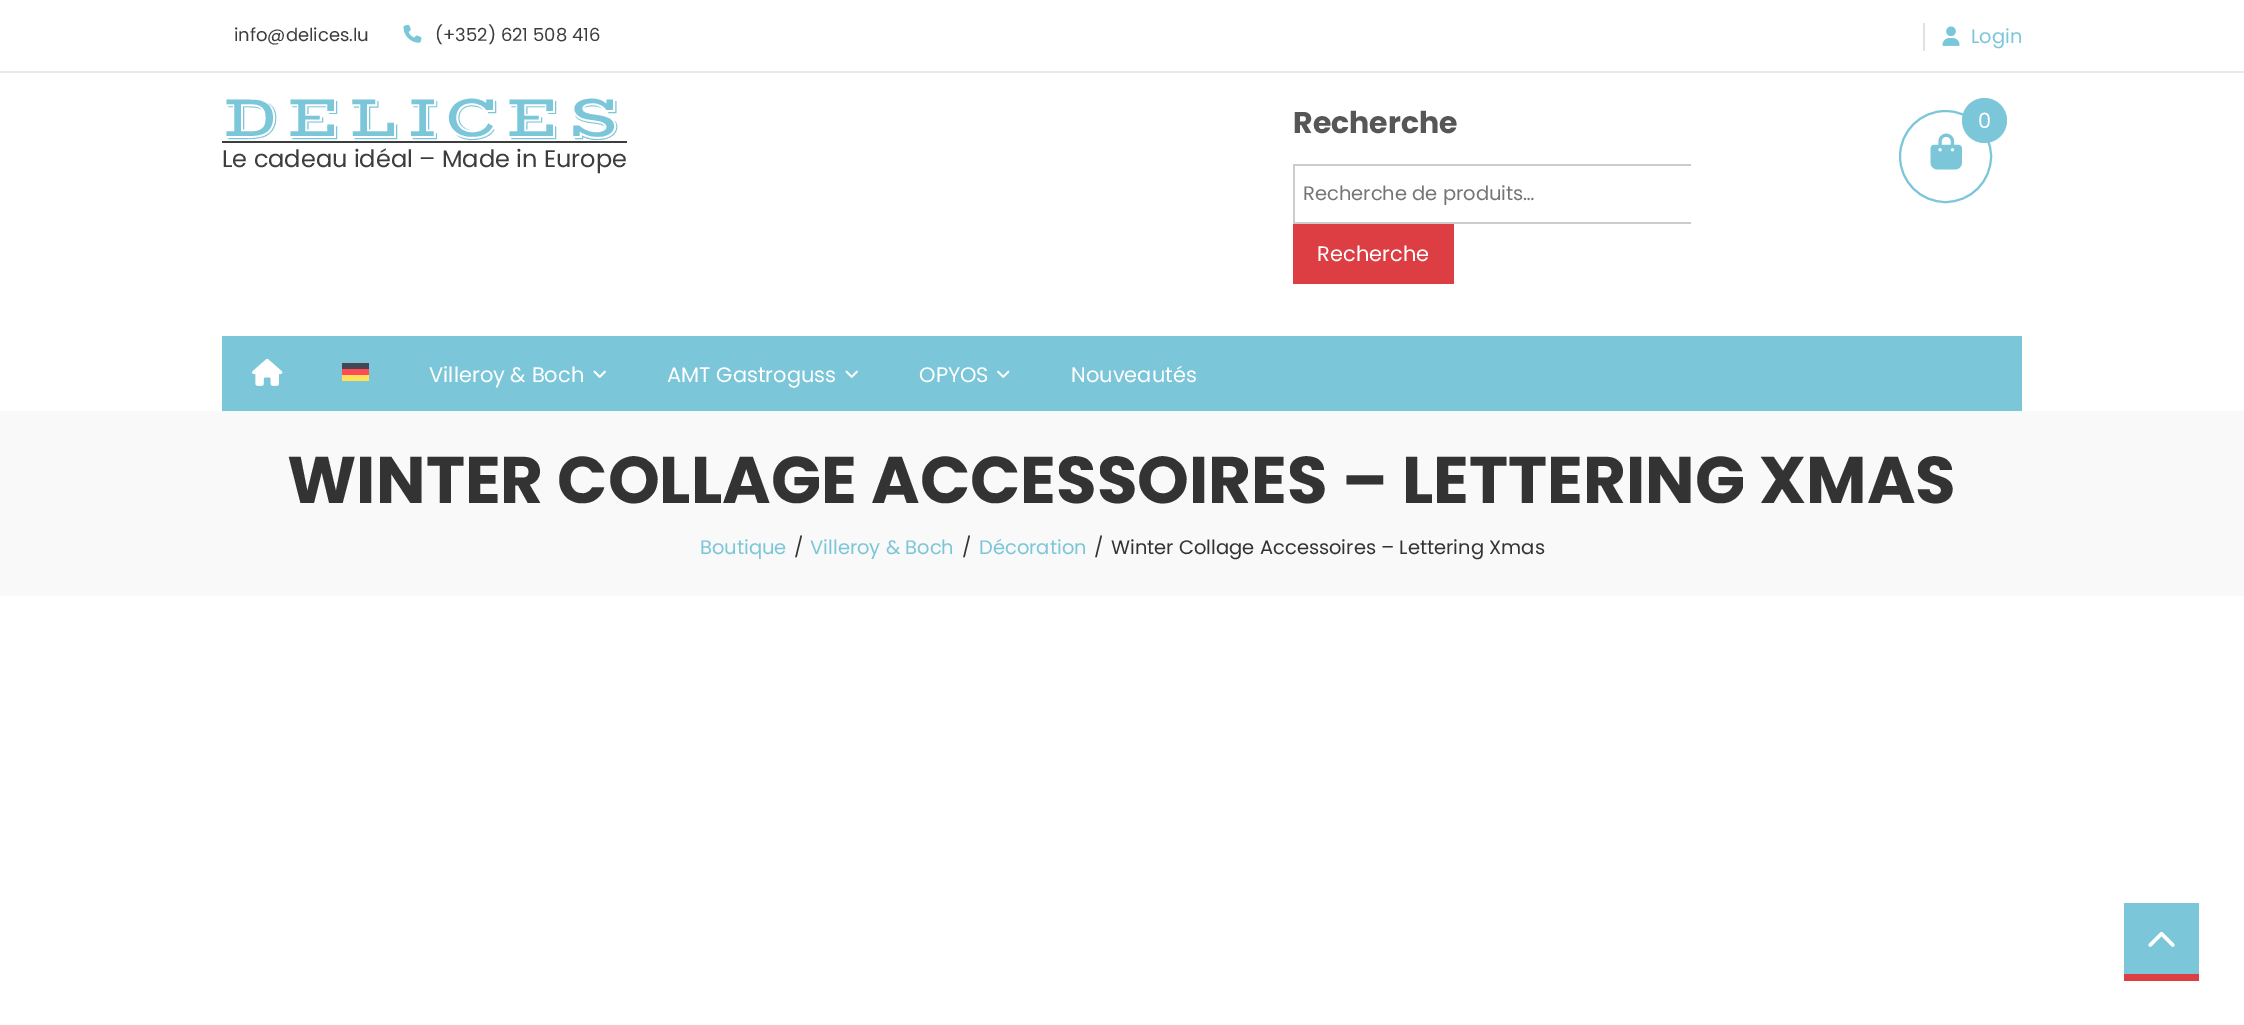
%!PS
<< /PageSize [2244 1025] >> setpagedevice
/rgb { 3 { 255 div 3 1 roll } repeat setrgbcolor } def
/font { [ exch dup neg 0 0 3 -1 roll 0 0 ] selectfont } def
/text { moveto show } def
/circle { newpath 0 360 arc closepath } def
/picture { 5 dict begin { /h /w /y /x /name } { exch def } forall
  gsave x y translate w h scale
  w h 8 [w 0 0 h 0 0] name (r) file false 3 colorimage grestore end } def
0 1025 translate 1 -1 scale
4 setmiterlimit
255 255 255 rgb
0 0 2244 1025 rectfill
234 234 234 rgb
0 71 2244 2 rectfill
(img_01.rgb) 403 24 19 19 picture
225 225 225 rgb
1923 23 2 28 rectfill
(img_02.rgb) 1942 26 18 20 picture
61 61 61 rgb
222 141 405 2 rectfill
204 204 204 rgb
1293 164 398 2 rectfill
1293 222 398 2 rectfill
1293 164 2 60 rectfill
221 62 67 rgb
1293 224 161 60 rectfill
123 198 216 rgb
2 setlinewidth
1945.5 156.5 45.5 circle stroke
1984.5 120.5 22.5 circle fill
(img_03.rgb) 1930 133 32 37 picture
222 336 1800 75 rectfill
(img_04.rgb) 252 358 31 28 picture
70 70 85 rgb
342 363 27 6 rectfill
255 75 85 rgb
342 369 27 6 rectfill
255 225 90 rgb
342 375 27 6 rectfill
(img_05.rgb) 593 370 13 8 picture
(img_05.rgb) 845 370 13 8 picture
(img_06.rgb) 997 370 13 8 picture
249 249 249 rgb
0 411 2244 185 rectfill
123 198 216 rgb
2124 903 75 71 rectfill
221 62 67 rgb
2124 974 75 7 rectfill
(img_07.rgb) 2148 931 27 16 picture
/Poppins-Regular 18 font
61 61 61 rgb
(info@delices.lu) 234 41 text
(\(+352\) 621 508 416) 435 41 text
/Poppins-Regular 19.5 font
123 198 216 rgb
(Login) 1971 43 text
/VastShadow-Regular 60 font
222 136 moveto 6 0 (DELICES) ashow
/Poppins-Regular 24 font
61 61 61 rgb
(Le cadeau idéal – Made in Europe) 222 167 text
/Poppins-Bold 30 font
86 86 86 rgb
(Recherche) 1293 133 text
/Poppins-Regular 19.5 font
117 117 117 rgb
(Recherche de produits…) 1303 200 text
/Poppins-Regular 21 font
255 255 255 rgb
(Recherche) 1317 261 text
(0) 1978 128 text
(Villeroy & Boch) 429 382 text
(AMT Gastroguss) 667 382 text
(OPYOS) 919 382 text
(Nouveautés) 1071 382 text
/Poppins-Bold 66 font
51 51 51 rgb
(WINTER COLLAGE ACCESSOIRES – LETTERING XMAS) 287 503 text
/Poppins-Regular 19.5 font
123 198 216 rgb
(Boutique) 700 554 text
51 51 51 rgb
(/) 794 554 text
123 198 216 rgb
(Villeroy & Boch) 810 554 text
51 51 51 rgb
(/) 962 554 text
123 198 216 rgb
(Décoration) 979 554 text
51 51 51 rgb
(/) 1094 554 text
(Winter Collage Accessoires – Lettering Xmas) 1111 554 text
showpage
